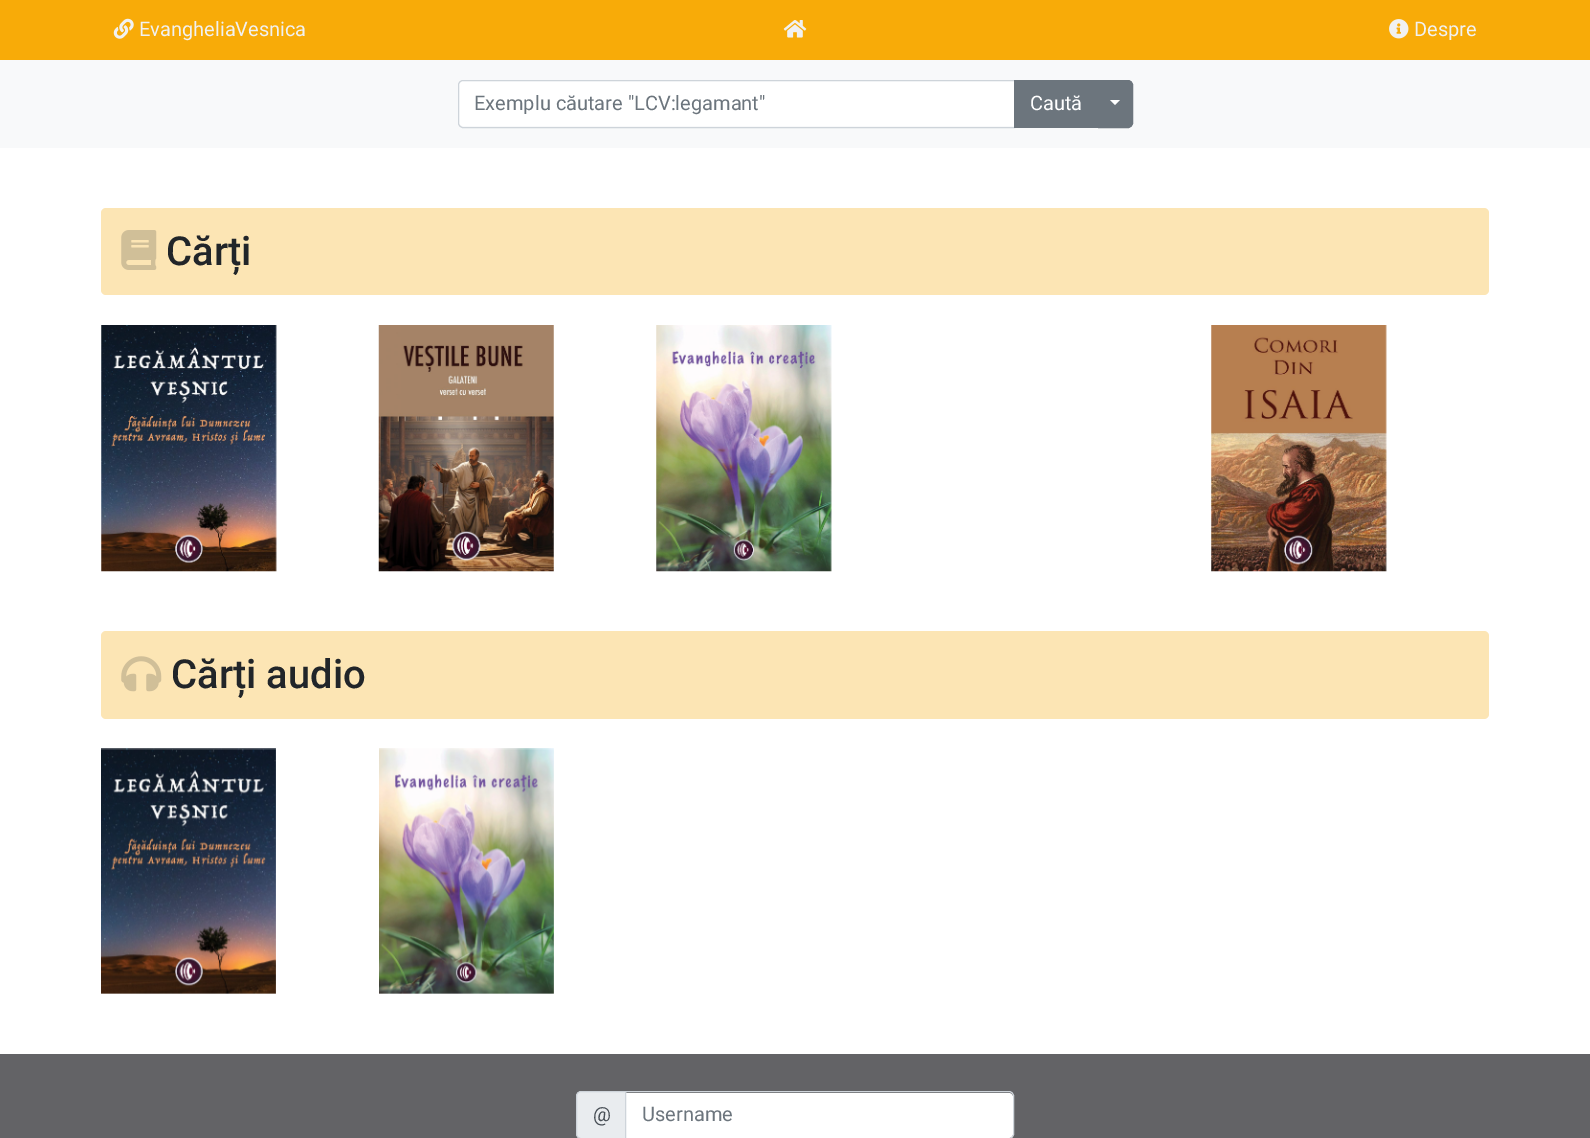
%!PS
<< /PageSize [1590 1138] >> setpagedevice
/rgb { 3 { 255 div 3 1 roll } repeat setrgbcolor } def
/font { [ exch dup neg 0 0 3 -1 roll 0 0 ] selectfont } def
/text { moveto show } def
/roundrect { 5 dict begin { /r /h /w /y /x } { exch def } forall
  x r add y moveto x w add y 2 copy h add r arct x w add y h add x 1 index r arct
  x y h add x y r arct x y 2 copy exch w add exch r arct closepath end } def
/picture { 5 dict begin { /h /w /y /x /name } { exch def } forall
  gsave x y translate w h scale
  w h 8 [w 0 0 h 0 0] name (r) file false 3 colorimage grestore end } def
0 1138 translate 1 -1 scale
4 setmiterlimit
255 255 255 rgb
0 0 1590 1138 rectfill
248 171 8 rgb
0 0 1590 60 rectfill
(img_01.rgb) 113 18 21 21 picture
(img_02.rgb) 783 20 24 18 picture
(img_03.rgb) 1389 19 20 20 picture
248 249 250 rgb
0 60 1590 88 rectfill
255 255 255 rgb
463 81 moveto 551 0 rlineto 0 45 rlineto -551 0 rlineto -2 0 -4 -2 -4 -4 rcurveto 0 -37 rlineto 0 -2 2 -4 4 -4 rcurveto closepath fill
206 212 218 rgb
463 80.5 moveto 551.5 0 rlineto 0 47 rlineto -551.5 0 rlineto -2.5 0 -4.5 -2 -4.5 -4.5 rcurveto 0 -38 rlineto 0 -2.5 2 -4.5 4.5 -4.5 rcurveto closepath stroke
108 117 125 rgb
1014 80 84 48 rectfill
1098.5 80.5 moveto 29.5 0 rlineto 2.5 0 4.5 2 4.5 4.5 rcurveto 0 38 rlineto 0 2.5 -2 4.5 -4.5 4.5 rcurveto -29.5 0 rlineto closepath gsave fill grestore
stroke
255 255 255 rgb
1110 100 moveto 10 0 rlineto -5 5 rlineto closepath fill
252 229 180 rgb
101 208 1388 87 5 roundrect fill
(img_04.rgb) 121 230 36 40 picture
(img_05.rgb) 101 325 176 247 picture
(img_06.rgb) 378 325 176 247 picture
(img_07.rgb) 656 325 176 247 picture
(img_08.rgb) 1211 325 176 247 picture
101 631 1388 88 5 roundrect fill
(img_09.rgb) 121 656 41 36 picture
(img_10.rgb) 101 748 175 246 picture
(img_11.rgb) 379 748 175 246 picture
99 99 102 rgb
0 1054 1590 84 rectfill
233 236 239 rgb
581 1091.5 moveto 44.5 0 rlineto 0 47 rlineto -44.5 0 rlineto -2.5 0 -4.5 -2 -4.5 -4.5 rcurveto 0 -38 rlineto 0 -2.5 2 -4.5 4.5 -4.5 rcurveto closepath gsave fill grestore
206 212 218 rgb
stroke
255 255 255 rgb
626 1093 moveto 383 0 rlineto 2 0 4 2 4 4 rcurveto 0 37 rlineto 0 2 -2 4 -4 4 rcurveto -383 0 rlineto closepath fill
206 212 218 rgb
625.5 1091.5 moveto 383.5 0 rlineto 2.5 0 4.5 2 4.5 4.5 rcurveto 0 38 rlineto 0 2.5 -2 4.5 -4.5 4.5 rcurveto -383.5 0 rlineto closepath stroke
/Roboto-Regular 20 font
241 241 241 rgb
(EvangheliaVesnica) 139 36 text
(Despre) 1414 36 text
108 117 125 rgb
(Exemplu căutare "LCV:legamant") 474 110 text
255 255 255 rgb
(Caută) 1030 110 text
/Roboto-Medium 40 font
33 37 41 rgb
(Cărți) 166 265 text
(Cărți audio) 171 688 text
/Roboto-Regular 20 font
73 80 87 rgb
(@) 593 1121 text
108 117 125 rgb
(Username) 642 1121 text
showpage
